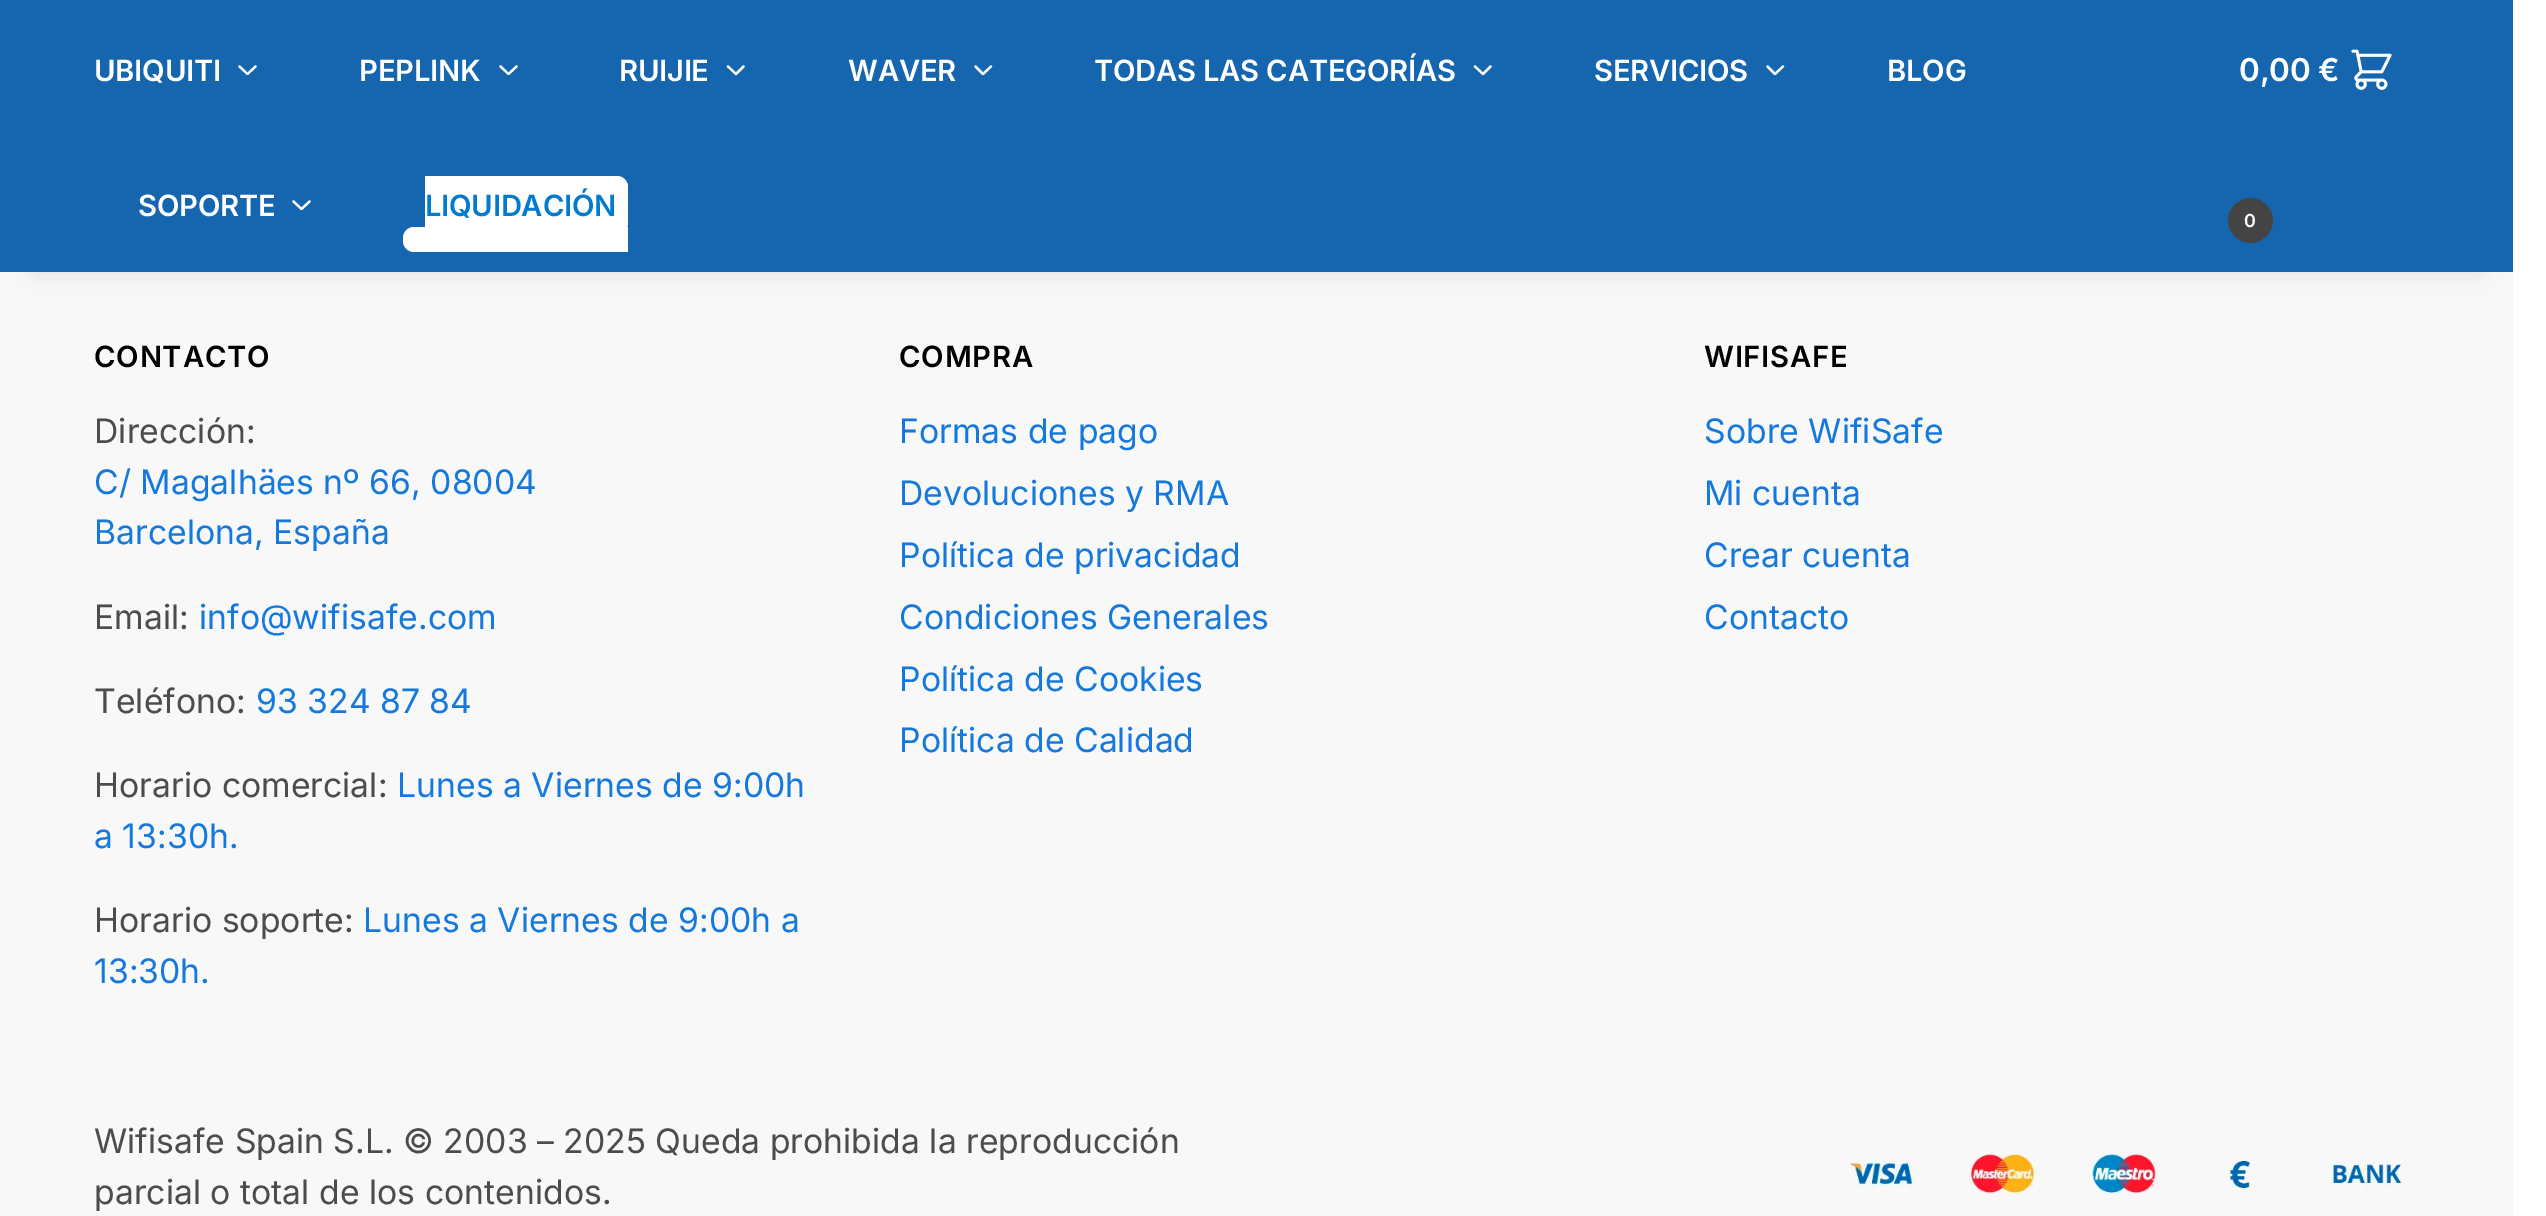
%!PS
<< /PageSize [2546 1216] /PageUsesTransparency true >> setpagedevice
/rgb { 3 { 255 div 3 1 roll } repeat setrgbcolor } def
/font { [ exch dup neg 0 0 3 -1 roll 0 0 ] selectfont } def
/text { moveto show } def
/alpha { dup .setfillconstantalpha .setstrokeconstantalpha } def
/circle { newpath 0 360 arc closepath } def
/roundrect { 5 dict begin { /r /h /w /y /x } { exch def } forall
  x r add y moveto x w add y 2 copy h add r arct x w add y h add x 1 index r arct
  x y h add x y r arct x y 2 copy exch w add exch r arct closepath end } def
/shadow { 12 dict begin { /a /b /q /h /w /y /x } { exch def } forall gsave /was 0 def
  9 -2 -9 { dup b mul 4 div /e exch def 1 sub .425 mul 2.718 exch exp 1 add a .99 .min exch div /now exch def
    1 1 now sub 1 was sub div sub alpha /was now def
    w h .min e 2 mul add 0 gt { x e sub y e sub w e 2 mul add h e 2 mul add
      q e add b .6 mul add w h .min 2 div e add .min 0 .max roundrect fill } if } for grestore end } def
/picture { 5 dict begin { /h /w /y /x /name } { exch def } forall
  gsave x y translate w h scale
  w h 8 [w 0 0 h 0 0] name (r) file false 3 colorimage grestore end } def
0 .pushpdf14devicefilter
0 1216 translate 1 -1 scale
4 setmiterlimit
255 255 255 rgb
0 0 2546 1216 rectfill
248 248 248 rgb
0 272 2513 944 rectfill
0 0 0 rgb
34 68 2446 204 0 11 0.1 shadow
21 102 175 rgb
0 0 2513 272 rectfill
255 255 255 rgb
2.2 setlinewidth
1 setlinecap
1 setlinejoin
255.5 66.5 moveto -8 7.5 rlineto -8 -7.5 rlineto stroke
516.5 66.5 moveto -8 7.5 rlineto -8 -7.5 rlineto stroke
743.5 66.5 moveto -7.5 7.5 rlineto -8 -7.5 rlineto stroke
991 66.5 moveto -8 7.5 rlineto -7.5 -7.5 rlineto stroke
1490.5 66.5 moveto -7.5 7.5 rlineto -8 -7.5 rlineto stroke
1783 66.5 moveto -8 7.5 rlineto -7.5 -7.5 rlineto stroke
309.5 201.5 moveto -8 7.5 rlineto -8 -7.5 rlineto stroke
414 227 moveto 214 0 rlineto 0 25 rlineto -214 0 rlineto -6 0 -11 -5 -11 -11 rcurveto 0 -3 rlineto 0 -6 5 -11 11 -11 rcurveto closepath fill
425 176 moveto 192 0 rlineto 6 0 11 5 11 11 rcurveto 0 36 rlineto 0 6 -5 11 -11 11 rcurveto -192 0 rlineto closepath fill
(img_01.rgb) 2351 49 41 41 picture
68 68 68 rgb
2250.5 220.5 21.5 circle gsave fill grestore
2 setlinewidth
0 setlinecap
0 setlinejoin
stroke
(img_02.rgb) 1849 1153 570 54 picture
/Inter-SemiBold 29.25 font
255 255 255 rgb
94 81 moveto -0.25 0 (UBIQUITI) ashow
359 81 moveto -0.25 0 (PEPLINK) ashow
619 81 moveto -0.25 0 (RUIJIE) ashow
848 81 moveto -0.25 0 (WAVER) ashow
1094 81 moveto -0.25 0 (TODAS LAS CATEGORÍAS) ashow
1594 81 moveto -0.25 0 (SERVICIOS) ashow
1887 81 moveto -0.25 0 (BLOG) ashow
138 216 moveto -0.25 0 (SOPORTE) ashow
0 123 208 rgb
425 216 moveto -0.25 0 (LIQUIDACIÓN) ashow
/Inter-SemiBold 31.5 font
255 255 255 rgb
2239 81 moveto -0.25 0 (0,00 €) ashow
/Inter-SemiBold 18 font
2244 227 moveto -0.25 0 (0) ashow
/Inter-SemiBold 29.25 font
0 0 0 rgb
94 367 moveto 0.75 0 (CONTACTO) ashow
/Inter-Regular 33.75 font
76 76 76 rgb
(Dirección:) 94 443 text
20 120 221 rgb
(C/ Magalhäes nº 66, 08004) 94 494 text
(Barcelona, España) 94 544 text
76 76 76 rgb
(Email:) 94 629 text
20 120 221 rgb
(info@wifisafe.com) 199 629 text
76 76 76 rgb
(Teléfono:) 94 713 text
20 120 221 rgb
(93 324 87 84) 256 713 text
76 76 76 rgb
(Horario comercial:) 94 797 text
20 120 221 rgb
(Lunes a Viernes de 9:00h) 397 797 text
(a 13:30h.) 94 848 text
76 76 76 rgb
(Horario soporte:) 94 932 text
20 120 221 rgb
(Lunes a Viernes de 9:00h a) 363 932 text
(13:30h.) 94 983 text
/Inter-SemiBold 29.25 font
0 0 0 rgb
899 367 moveto 0.75 0 (COMPRA) ashow
/Inter-Regular 33.75 font
20 120 221 rgb
(Formas de pago) 899 443 text
(Devoluciones y RMA) 899 505 text
(Política de privacidad) 899 567 text
(Condiciones Generales) 899 629 text
(Política de Cookies) 899 691 text
(Política de Calidad) 899 752 text
/Inter-SemiBold 29.25 font
0 0 0 rgb
1704 367 moveto 0.75 0 (WIFISAFE) ashow
/Inter-Regular 33.75 font
20 120 221 rgb
(Sobre WifiSafe) 1704 443 text
(Mi cuenta) 1704 505 text
(Crear cuenta) 1704 567 text
(Contacto) 1704 629 text
76 76 76 rgb
(Wifisafe Spain S.L. © 2003 – 2025 Queda prohibida la reproducción) 94 1153 text
(parcial o total de los contenidos.) 94 1204 text
.poppdf14devicefilter showpage
